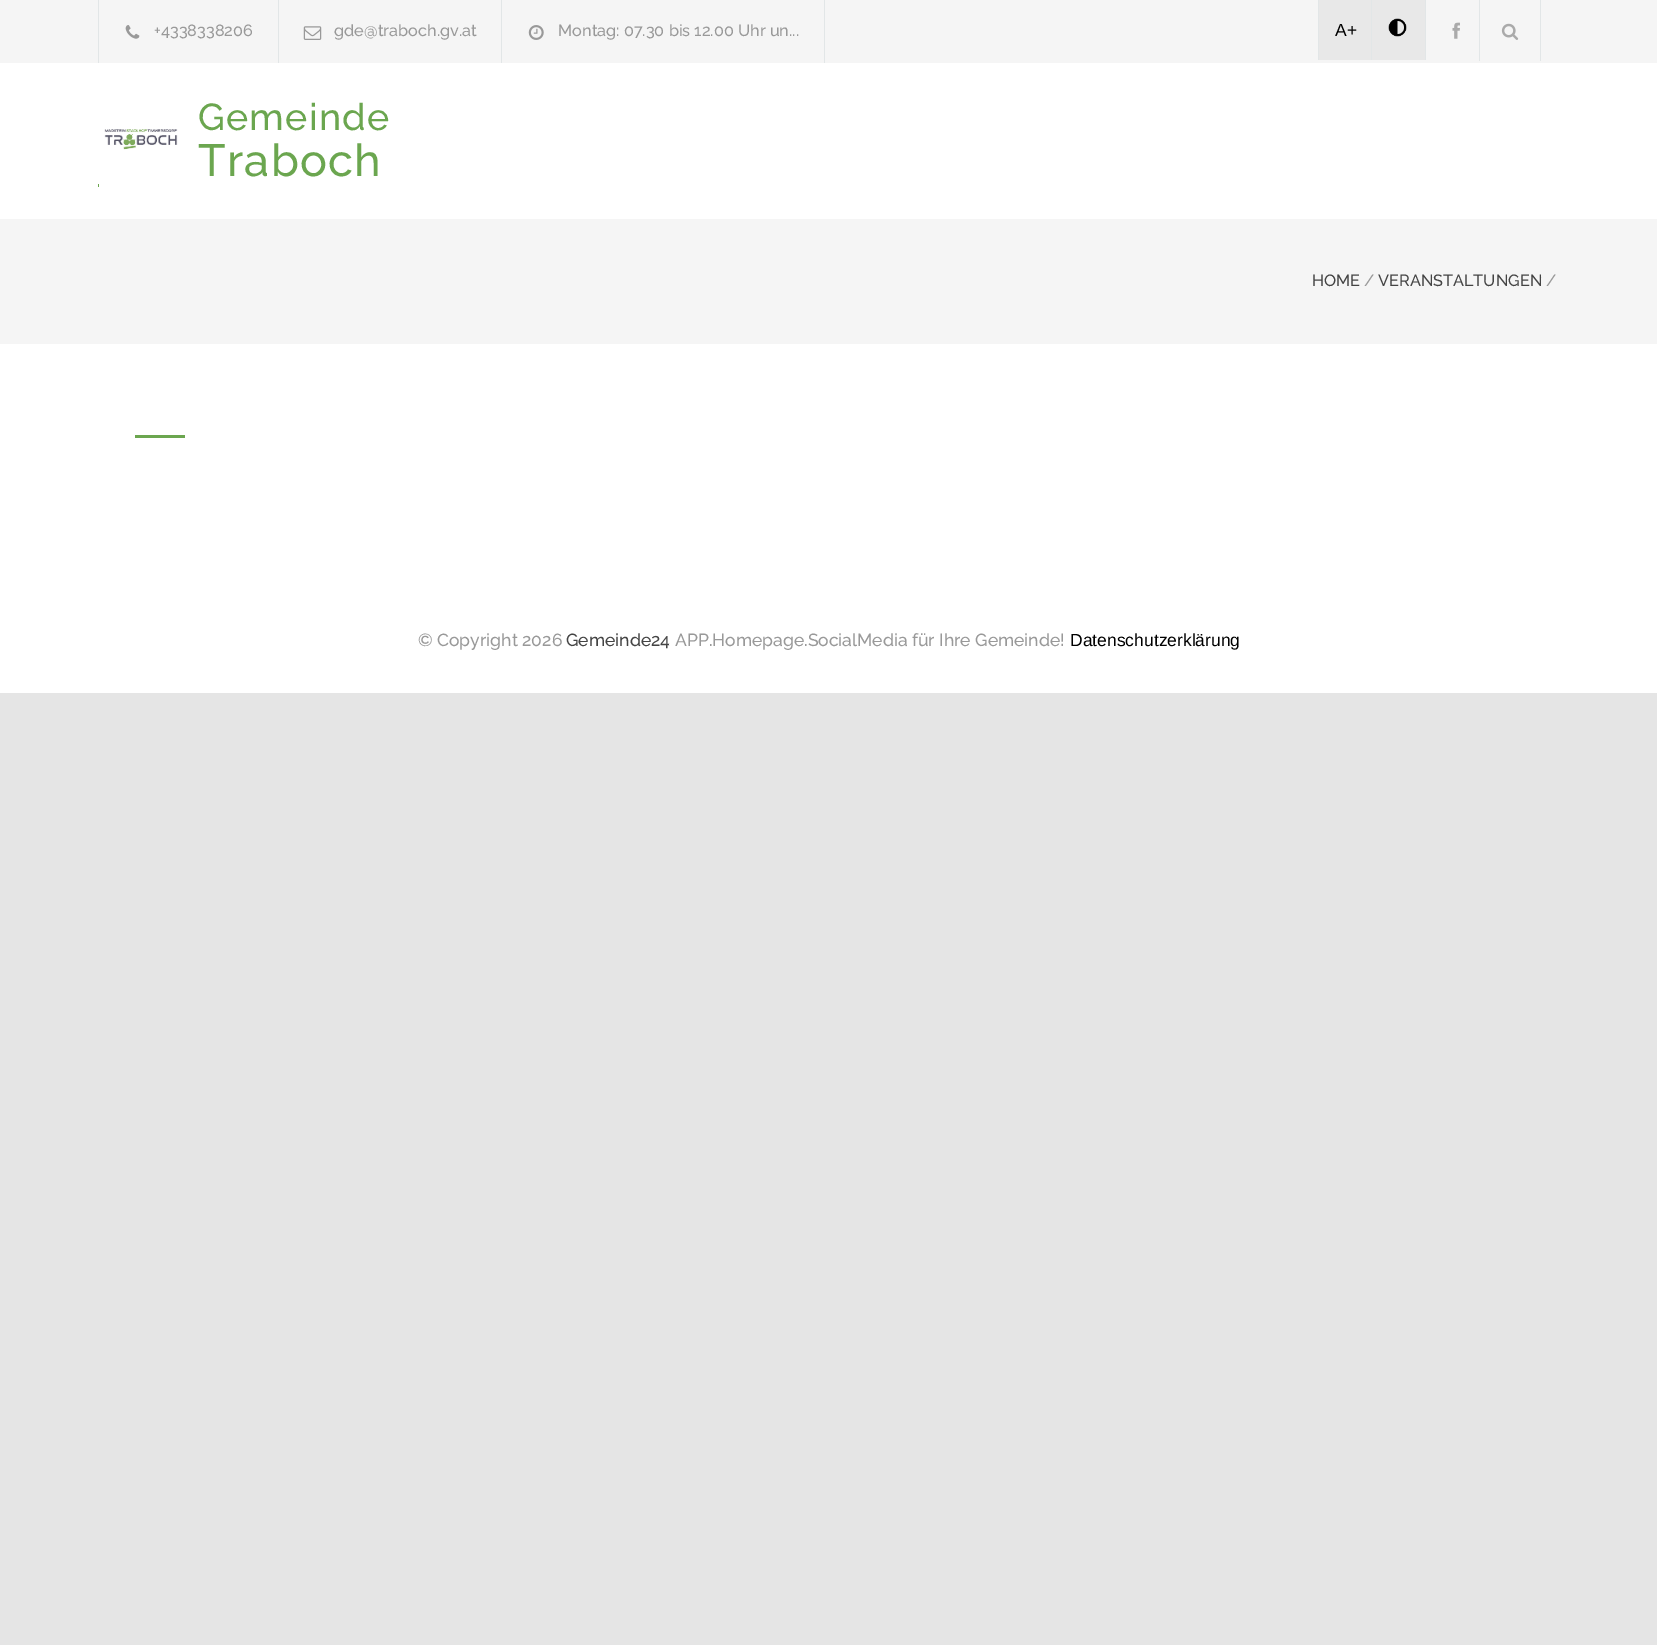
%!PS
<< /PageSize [1657 1645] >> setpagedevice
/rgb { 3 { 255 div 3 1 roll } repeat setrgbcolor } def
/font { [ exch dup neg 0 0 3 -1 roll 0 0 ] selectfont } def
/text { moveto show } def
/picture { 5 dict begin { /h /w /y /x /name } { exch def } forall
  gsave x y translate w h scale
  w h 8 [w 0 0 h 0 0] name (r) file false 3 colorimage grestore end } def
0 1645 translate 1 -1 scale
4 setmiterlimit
229 229 229 rgb
0 0 1657 1645 rectfill
255 255 255 rgb
0 63 1657 630 rectfill
245 245 245 rgb
0 0 1657 63 rectfill
226 230 231 rgb
278 0 1 63 rectfill
98 0 1 63 rectfill
(img_01.rgb) 125 25 15 14 picture
501 0 1 63 rectfill
(img_02.rgb) 303 26 19 14 picture
824 0 1 63 rectfill
(img_03.rgb) 528 25 16 15 picture
232 232 232 rgb
1319 0 106 60 rectfill
226 230 231 rgb
1371 0 1 60 rectfill
1318 0 1 60 rectfill
1425 0 1 60 rectfill
(img_04.rgb) 1388 18 19 19 picture
1479 0 1 61 rectfill
(img_05.rgb) 1452 22 8 17 picture
1540 0 1 61 rectfill
(img_06.rgb) 1501 23 18 17 picture
(img_07.rgb) 104 129 74 21 picture
107 166 79 rgb
98 184 1 3 rectfill
245 245 245 rgb
0 219 1657 125 rectfill
107 166 79 rgb
135 435 50 3 rectfill
/Raleway-Medium 16.25 font
153 153 153 rgb
(+4338338206) 154 36 text
(gde@traboch.gv.at) 334 36 text
(Montag: 07.30 bis 12.00 Uhr un...) 558 36 text
/LiberationSans-Regular 17.5 font
0 0 0 rgb
(A+) 1335 36 text
/Raleway-Medium 37.5 font
107 166 79 rgb
198 130 moveto 1.25 0 (Gemeinde) ashow
/Raleway-Medium 45 font
198 176 moveto 1.25 0 (Traboch) ashow
/Raleway-Medium 16.25 font
68 68 68 rgb
(HOME) 1312 286 text
153 153 153 rgb
(/) 1364 286 text
68 68 68 rgb
(VERANSTALTUNGEN) 1378 286 text
153 153 153 rgb
(/) 1546 286 text
/Raleway-Medium 17.5 font
(© Copyright 2026) 418 646 text
68 68 68 rgb
(Gemeinde24) 566 646 text
153 153 153 rgb
(APP.Homepage.SocialMedia für Ihre Gemeinde!) 675 646 text
/LiberationSans-Regular 17.5 font
0 0 0 rgb
(Datenschutzerklärung) 1070 646 text
showpage
